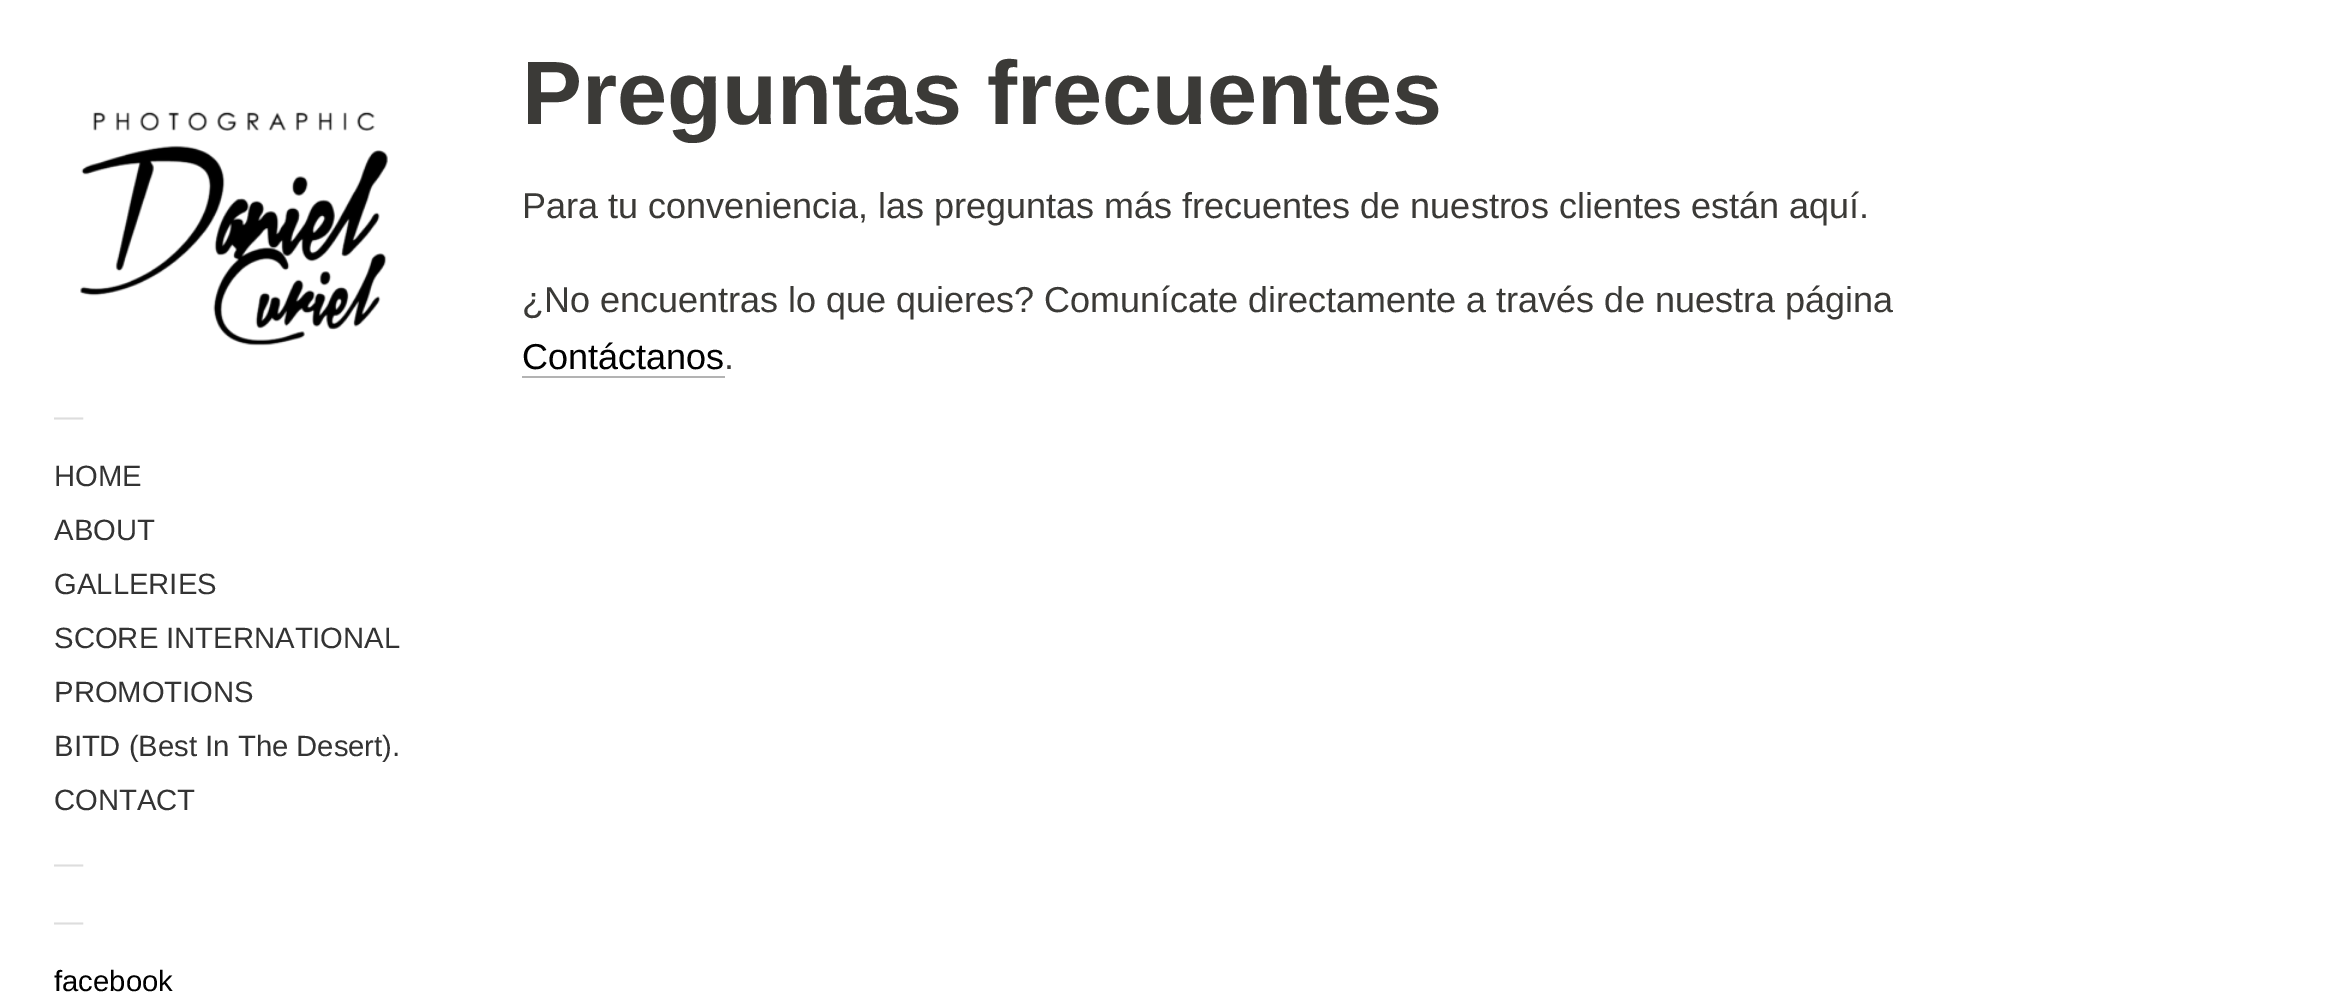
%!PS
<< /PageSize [2327 1007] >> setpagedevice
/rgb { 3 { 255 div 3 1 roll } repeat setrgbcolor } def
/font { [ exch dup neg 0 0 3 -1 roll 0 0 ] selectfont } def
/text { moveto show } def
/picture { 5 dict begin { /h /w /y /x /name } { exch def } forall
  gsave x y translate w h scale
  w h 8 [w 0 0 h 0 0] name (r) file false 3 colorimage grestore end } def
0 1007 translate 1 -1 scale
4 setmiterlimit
255 255 255 rgb
0 0 2327 1007 rectfill
179 179 179 rgb
522 376 203 2 rectfill
(img_01.rgb) 80 111 308 235 picture
/LiberationSans-Bold 90 font
59 58 55 rgb
(Preguntas frecuentes) 522 124 text
/LiberationSans-Regular 36 font
(Para tu conveniencia, las preguntas más frecuentes de nuestros clientes están aquí.) 522 218 text
(¿No encuentras lo que quieres? Comunícate directamente a través de nuestra página) 522 312 text
0 0 0 rgb
(Contáctanos) 522 369 text
59 58 55 rgb
(.) 724 369 text
/LiberationSans-Regular 29.25 font
221 221 221 rgb
(—) 54 426 text
51 51 51 rgb
(HOME) 54 486 text
(ABOUT) 54 540 text
(GALLERIES) 54 594 text
(SCORE INTERNATIONAL) 54 648 text
(PROMOTIONS) 54 702 text
(BITD \(Best In The Desert\).) 54 756 text
(CONTACT) 54 810 text
221 221 221 rgb
(—) 54 873 text
(—) 54 931 text
0 0 0 rgb
(facebook) 54 991 text
showpage
